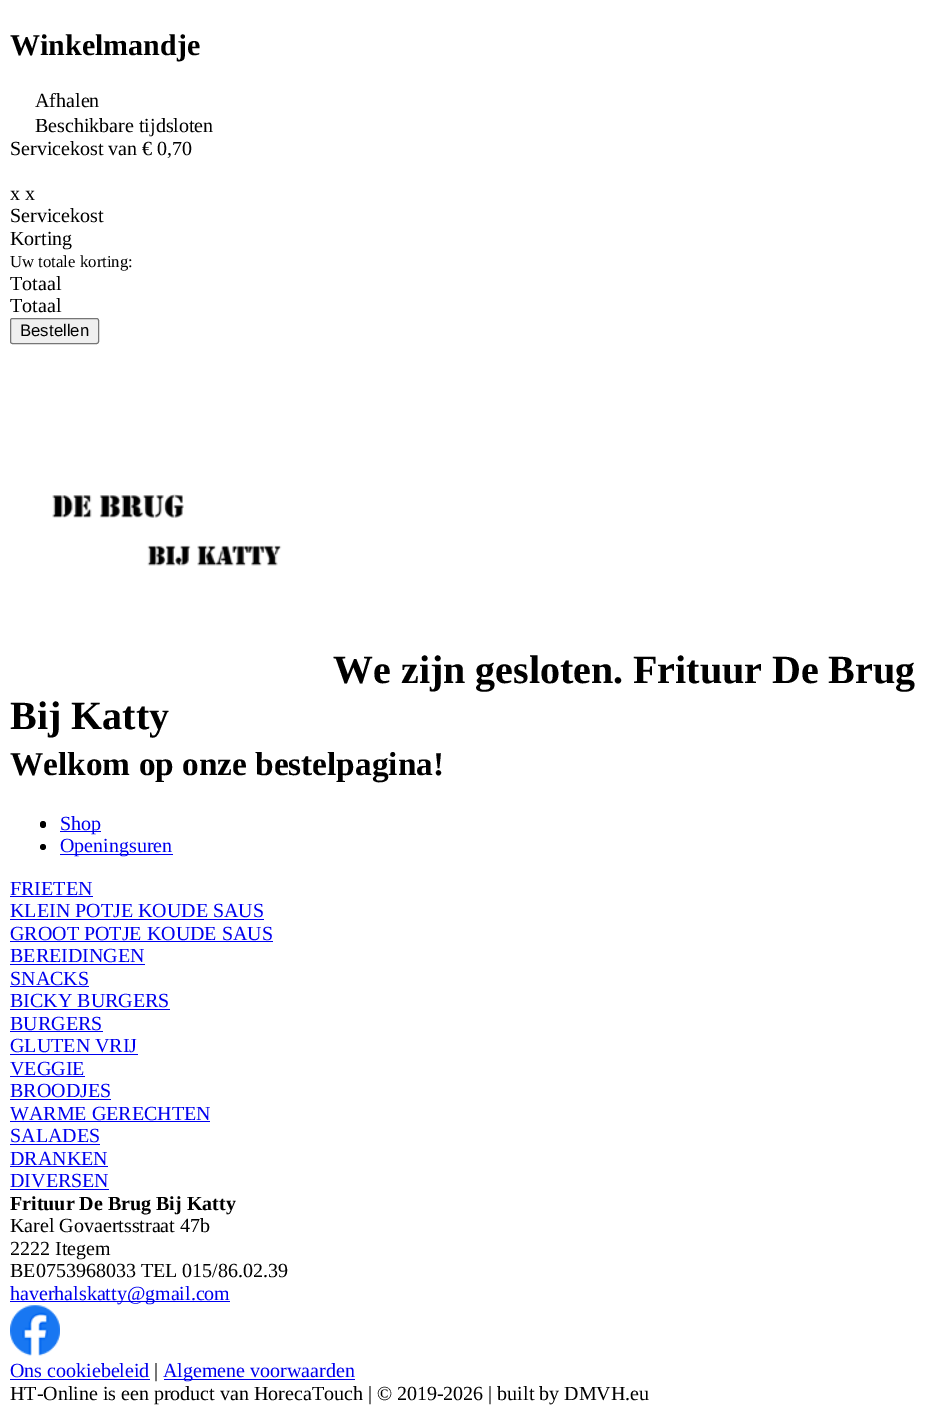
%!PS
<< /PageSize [940 1414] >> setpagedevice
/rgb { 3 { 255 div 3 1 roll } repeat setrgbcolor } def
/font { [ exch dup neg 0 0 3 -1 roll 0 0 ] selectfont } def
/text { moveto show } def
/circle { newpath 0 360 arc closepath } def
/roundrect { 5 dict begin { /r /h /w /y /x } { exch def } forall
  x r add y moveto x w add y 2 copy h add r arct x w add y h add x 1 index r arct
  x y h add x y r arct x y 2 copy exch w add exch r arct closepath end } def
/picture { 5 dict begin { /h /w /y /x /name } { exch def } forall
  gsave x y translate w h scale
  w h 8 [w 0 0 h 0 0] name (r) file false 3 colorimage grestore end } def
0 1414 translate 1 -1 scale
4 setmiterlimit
255 255 255 rgb
0 0 940 1414 rectfill
239 239 239 rgb
10.5 318.5 88 25 2 roundrect gsave fill grestore
118 118 118 rgb
stroke
(img_01.rgb) 52 494 230 72 picture
0 0 0 rgb
40 821 6 7 3 roundrect fill
0 0 238 rgb
60 831 41 1 rectfill
0 0 0 rgb
43 847 3 circle fill
0 0 238 rgb
60 854 113 1 rectfill
10 896 83 1 rectfill
10 919 254 1 rectfill
10 941 263 1 rectfill
10 964 135 1 rectfill
10 986 79 1 rectfill
10 1009 160 1 rectfill
10 1031 93 1 rectfill
10 1054 128 1 rectfill
10 1076 75 1 rectfill
10 1099 101 1 rectfill
10 1121 200 1 rectfill
10 1144 90 1 rectfill
10 1166 98 1 rectfill
10 1189 99 1 rectfill
10 1301 220 1 rectfill
(img_02.rgb) 10 1305 50 51 picture
10 1379 140 1 rectfill
164 1379 191 1 rectfill
/LiberationSerif-Bold 30 font
0 0 0 rgb
(Winkelmandje) 10 55 text
/LiberationSerif-Regular 20 font
(Afhalen) 35 107 text
(Beschikbare tijdsloten) 35 132 text
(Servicekost van € 0,70) 10 155 text
(x x) 10 200 text
(Servicekost) 10 222 text
(Korting) 10 245 text
/LiberationSerif-Regular 16.75 font
(Uw totale korting:) 10 267 text
/LiberationSerif-Regular 20 font
(Totaal) 10 290 text
(Totaal) 10 312 text
/LiberationSans-Regular 16.75 font
(Bestellen) 20 336 text
/LiberationSerif-Bold 40 font
(We zijn gesloten. Frituur De Brug) 333 683 text
(Bij Katty) 10 729 text
/LiberationSerif-Bold 33.3 font
(Welkom op onze bestelpagina!) 10 775 text
/LiberationSerif-Regular 20 font
0 0 238 rgb
(Shop) 60 830 text
(Openingsuren) 60 852 text
(FRIETEN) 10 895 text
(KLEIN POTJE KOUDE SAUS) 10 917 text
(GROOT POTJE KOUDE SAUS) 10 940 text
(BEREIDINGEN) 10 962 text
(SNACKS) 10 985 text
(BICKY BURGERS) 10 1007 text
(BURGERS) 10 1030 text
(GLUTEN VRIJ) 10 1052 text
(VEGGIE) 10 1075 text
(BROODJES) 10 1097 text
(WARME GERECHTEN) 10 1120 text
(SALADES) 10 1142 text
(DRANKEN) 10 1165 text
(DIVERSEN) 10 1187 text
/LiberationSerif-Bold 20 font
0 0 0 rgb
(Frituur De Brug Bij Katty) 10 1210 text
/LiberationSerif-Regular 20 font
(Karel Govaertsstraat 47b) 10 1232 text
(2222 Itegem) 10 1255 text
(BE0753968033 TEL 015/86.02.39) 10 1277 text
0 0 238 rgb
(haverhalskatty@gmail.com) 10 1300 text
(Ons cookiebeleid) 10 1377 text
0 0 0 rgb
(|) 154 1377 text
0 0 238 rgb
(Algemene voorwaarden) 163 1377 text
0 0 0 rgb
(HT-Online is een product van HorecaTouch | © 2019-2026 | built by DMVH.eu) 10 1400 text
showpage
